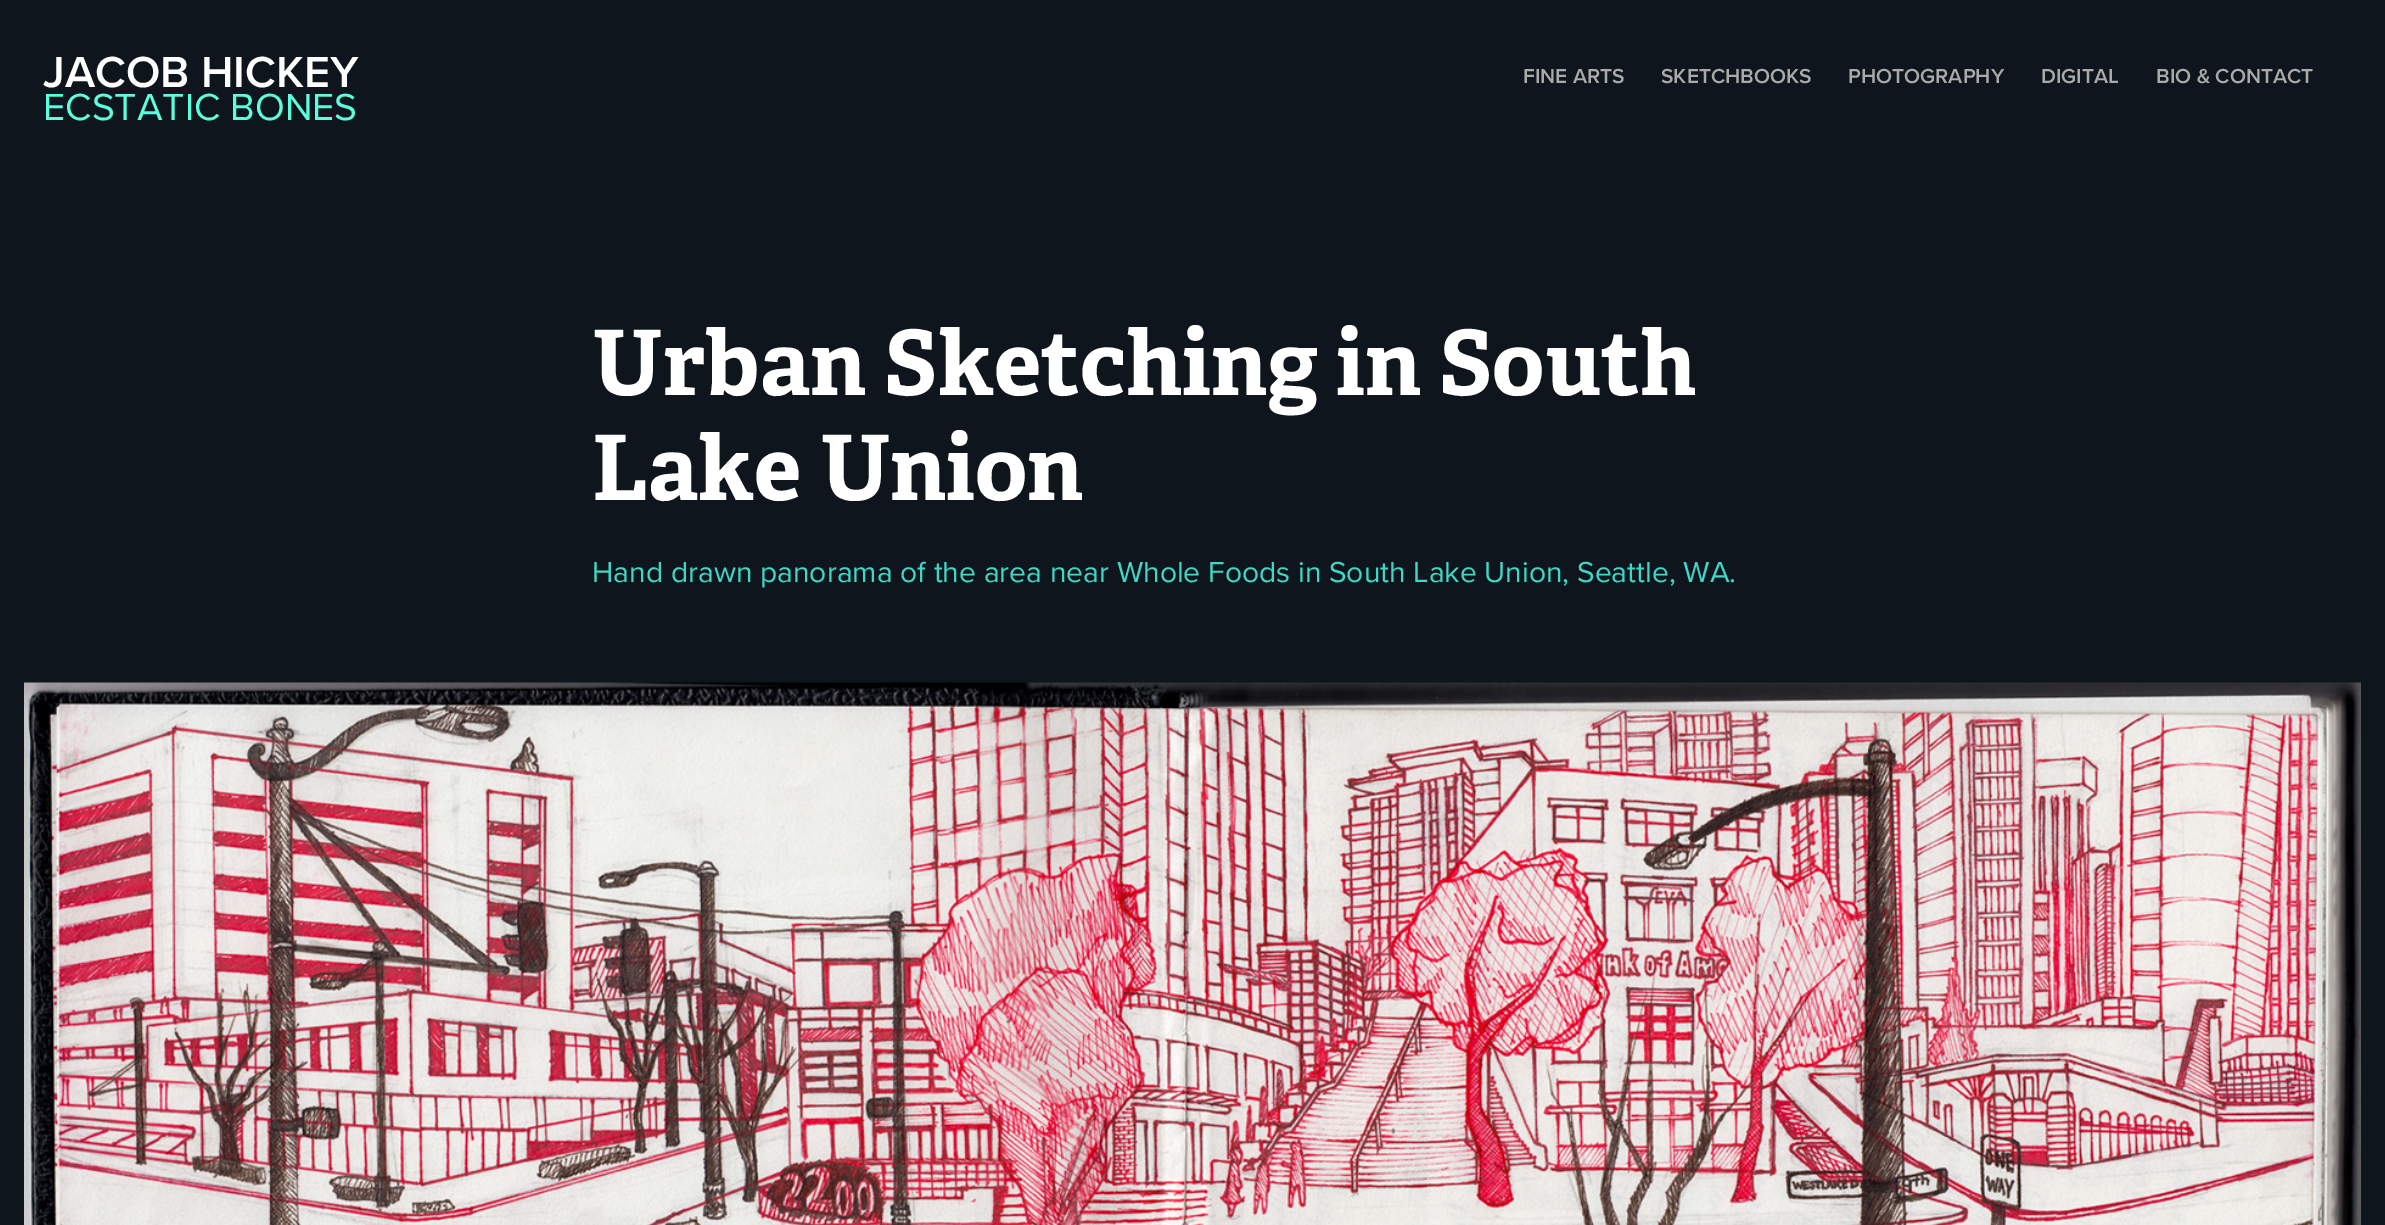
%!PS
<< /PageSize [2385 1225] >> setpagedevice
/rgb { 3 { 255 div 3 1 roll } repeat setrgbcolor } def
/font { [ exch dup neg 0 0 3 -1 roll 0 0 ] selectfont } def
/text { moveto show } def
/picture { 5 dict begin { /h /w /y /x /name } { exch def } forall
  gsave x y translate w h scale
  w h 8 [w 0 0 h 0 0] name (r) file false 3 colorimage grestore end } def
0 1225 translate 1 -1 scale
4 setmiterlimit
15 21 28 rgb
0 0 2385 1225 rectfill
(img_01.rgb) 24 682 2337 543 picture
/ProximaNova-SemiBold 45 font
255 255 255 rgb
(JACOB HICKEY) 43 87 text
/ProximaNova-Regular 39 font
92 255 220 rgb
(ECSTATIC BONES) 43 120 text
/ProximaNova-SemiBold 21 font
170 170 170 rgb
(FINE ARTS) 1523 83 text
(SKETCHBOOKS) 1661 83 text
(PHOTOGRAPHY) 1848 83 text
(DIGITAL) 2041 83 text
(BIO & CONTACT) 2156 83 text
/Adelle-Bold 90 font
255 255 255 rgb
(Urban Sketching in South) 592 395 text
(Lake Union) 592 500 text
/ProximaNova-Regular 30 font
65 215 199 rgb
(Hand drawn panorama of the area near Whole Foods in South Lake Union, Seattle, WA.) 592 582 text
showpage
